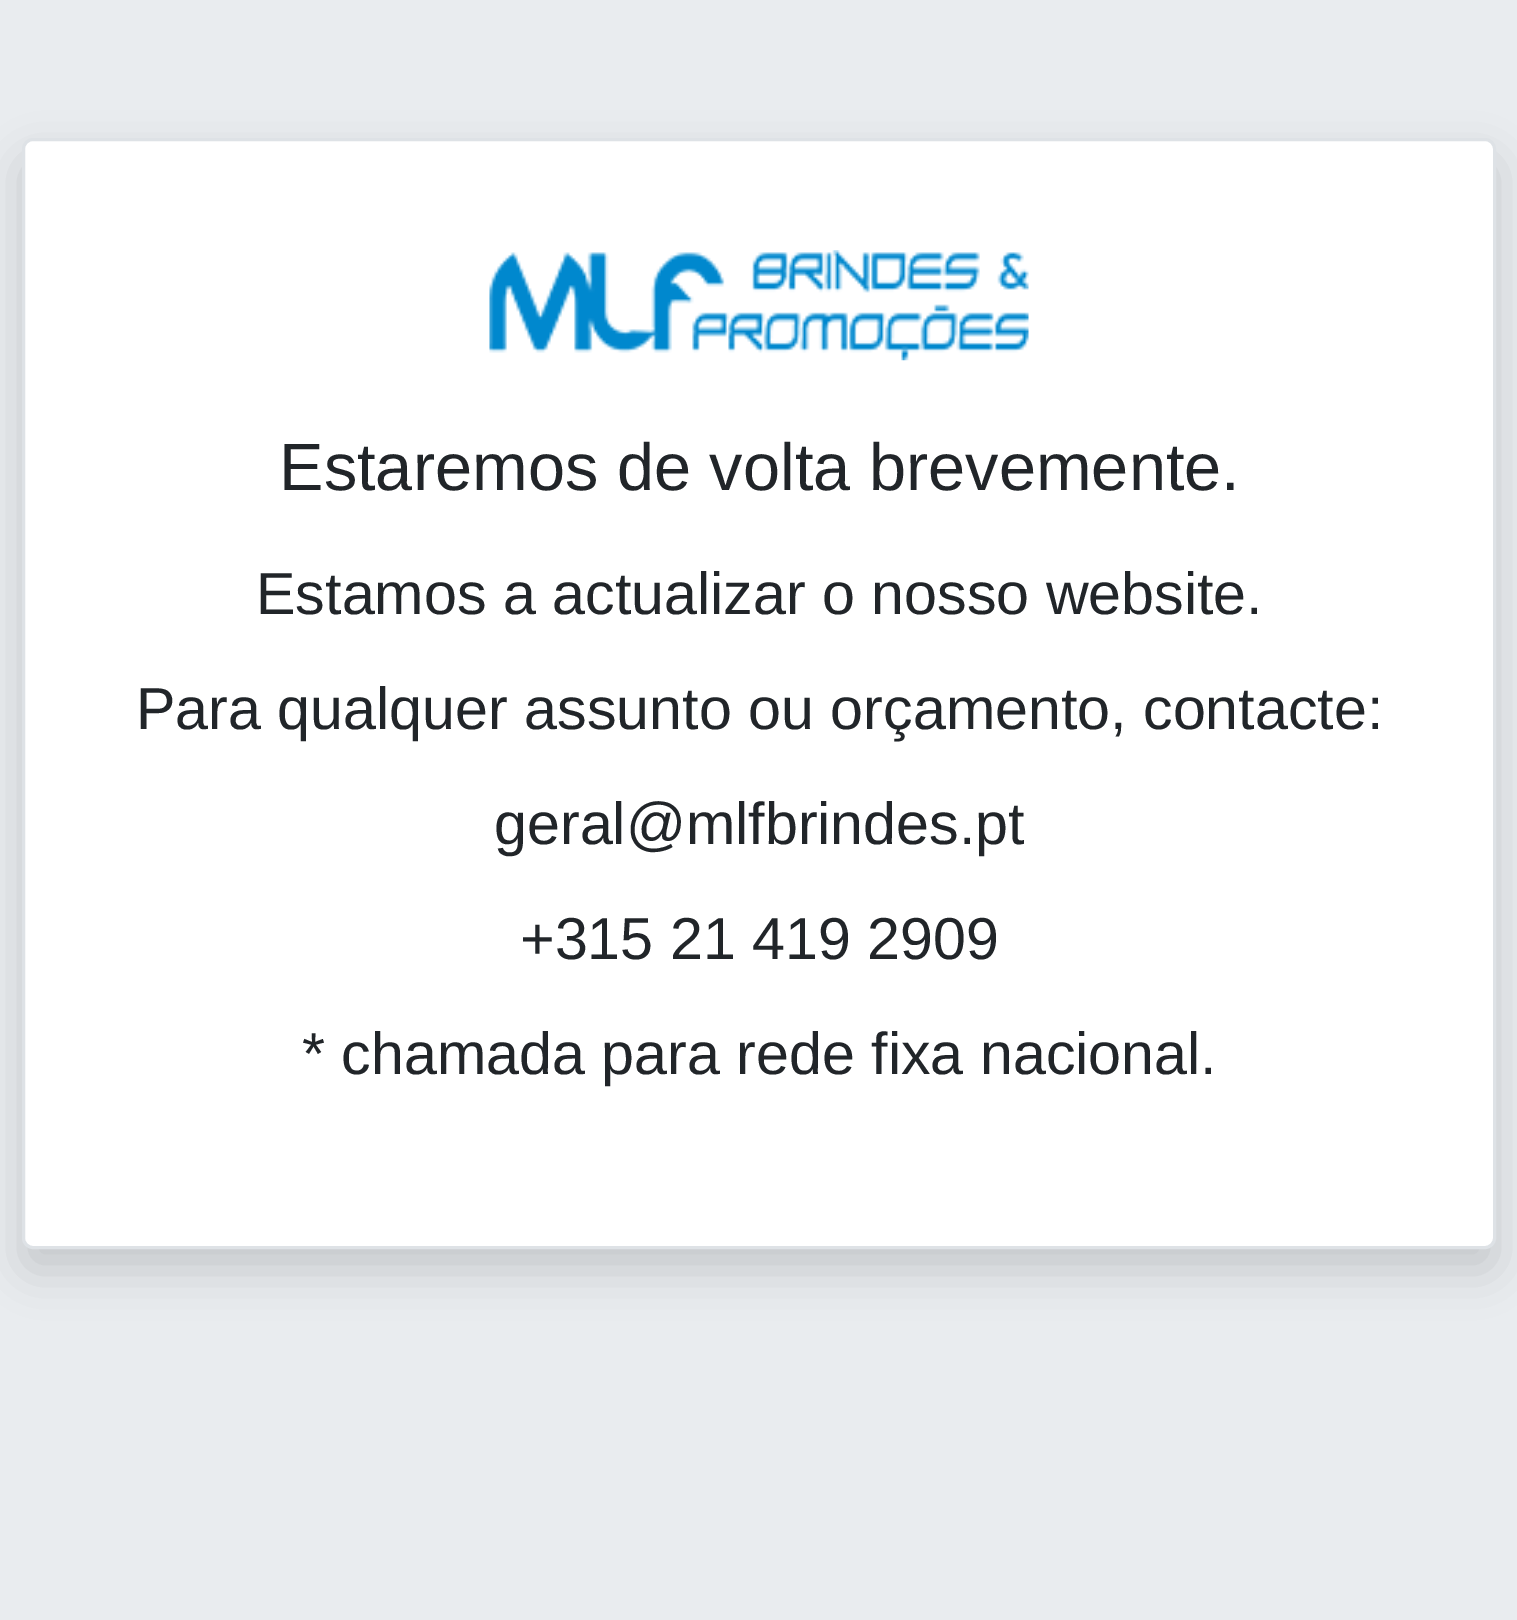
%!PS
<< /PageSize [1517 1620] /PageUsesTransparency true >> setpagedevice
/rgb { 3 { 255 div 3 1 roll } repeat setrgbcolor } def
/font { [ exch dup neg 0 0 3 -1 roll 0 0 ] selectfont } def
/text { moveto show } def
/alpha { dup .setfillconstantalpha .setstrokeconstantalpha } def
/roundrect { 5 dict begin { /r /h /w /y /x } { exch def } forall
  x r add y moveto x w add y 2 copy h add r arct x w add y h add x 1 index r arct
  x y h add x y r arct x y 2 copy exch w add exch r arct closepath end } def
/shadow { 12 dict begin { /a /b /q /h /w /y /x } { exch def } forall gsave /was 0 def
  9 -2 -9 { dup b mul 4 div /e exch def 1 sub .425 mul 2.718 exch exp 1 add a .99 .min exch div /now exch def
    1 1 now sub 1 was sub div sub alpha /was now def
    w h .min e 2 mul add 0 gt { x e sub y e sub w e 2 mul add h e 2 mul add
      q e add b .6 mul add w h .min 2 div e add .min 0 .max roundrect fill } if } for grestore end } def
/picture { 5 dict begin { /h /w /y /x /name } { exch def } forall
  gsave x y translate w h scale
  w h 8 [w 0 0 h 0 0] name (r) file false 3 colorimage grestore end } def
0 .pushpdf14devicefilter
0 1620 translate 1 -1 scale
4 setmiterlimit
233 236 239 rgb
0 0 1517 1620 rectfill
0 0 0 rgb
22 160 1474 1111 11 22 0.15 shadow
255 255 255 rgb
23.5 139.5 1471 1108 9.5 roundrect gsave fill grestore
222 226 230 rgb
3 setlinewidth
stroke
(img_01.rgb) 489 250 540 111 picture
/LiberationSans-Regular 66.75 font
33 37 41 rgb
(Estaremos de volta brevemente.) 279 490 text
/LiberationSans-Regular 59.2 font
(Estamos a actualizar o nosso website.) 256 614 text
(Para qualquer assunto ou orçamento, contacte:) 136 729 text
(geral@mlfbrindes.pt) 494 844 text
(+315 21 419 2909) 520 959 text
(* chamada para rede fixa nacional.) 302 1074 text
.poppdf14devicefilter showpage
